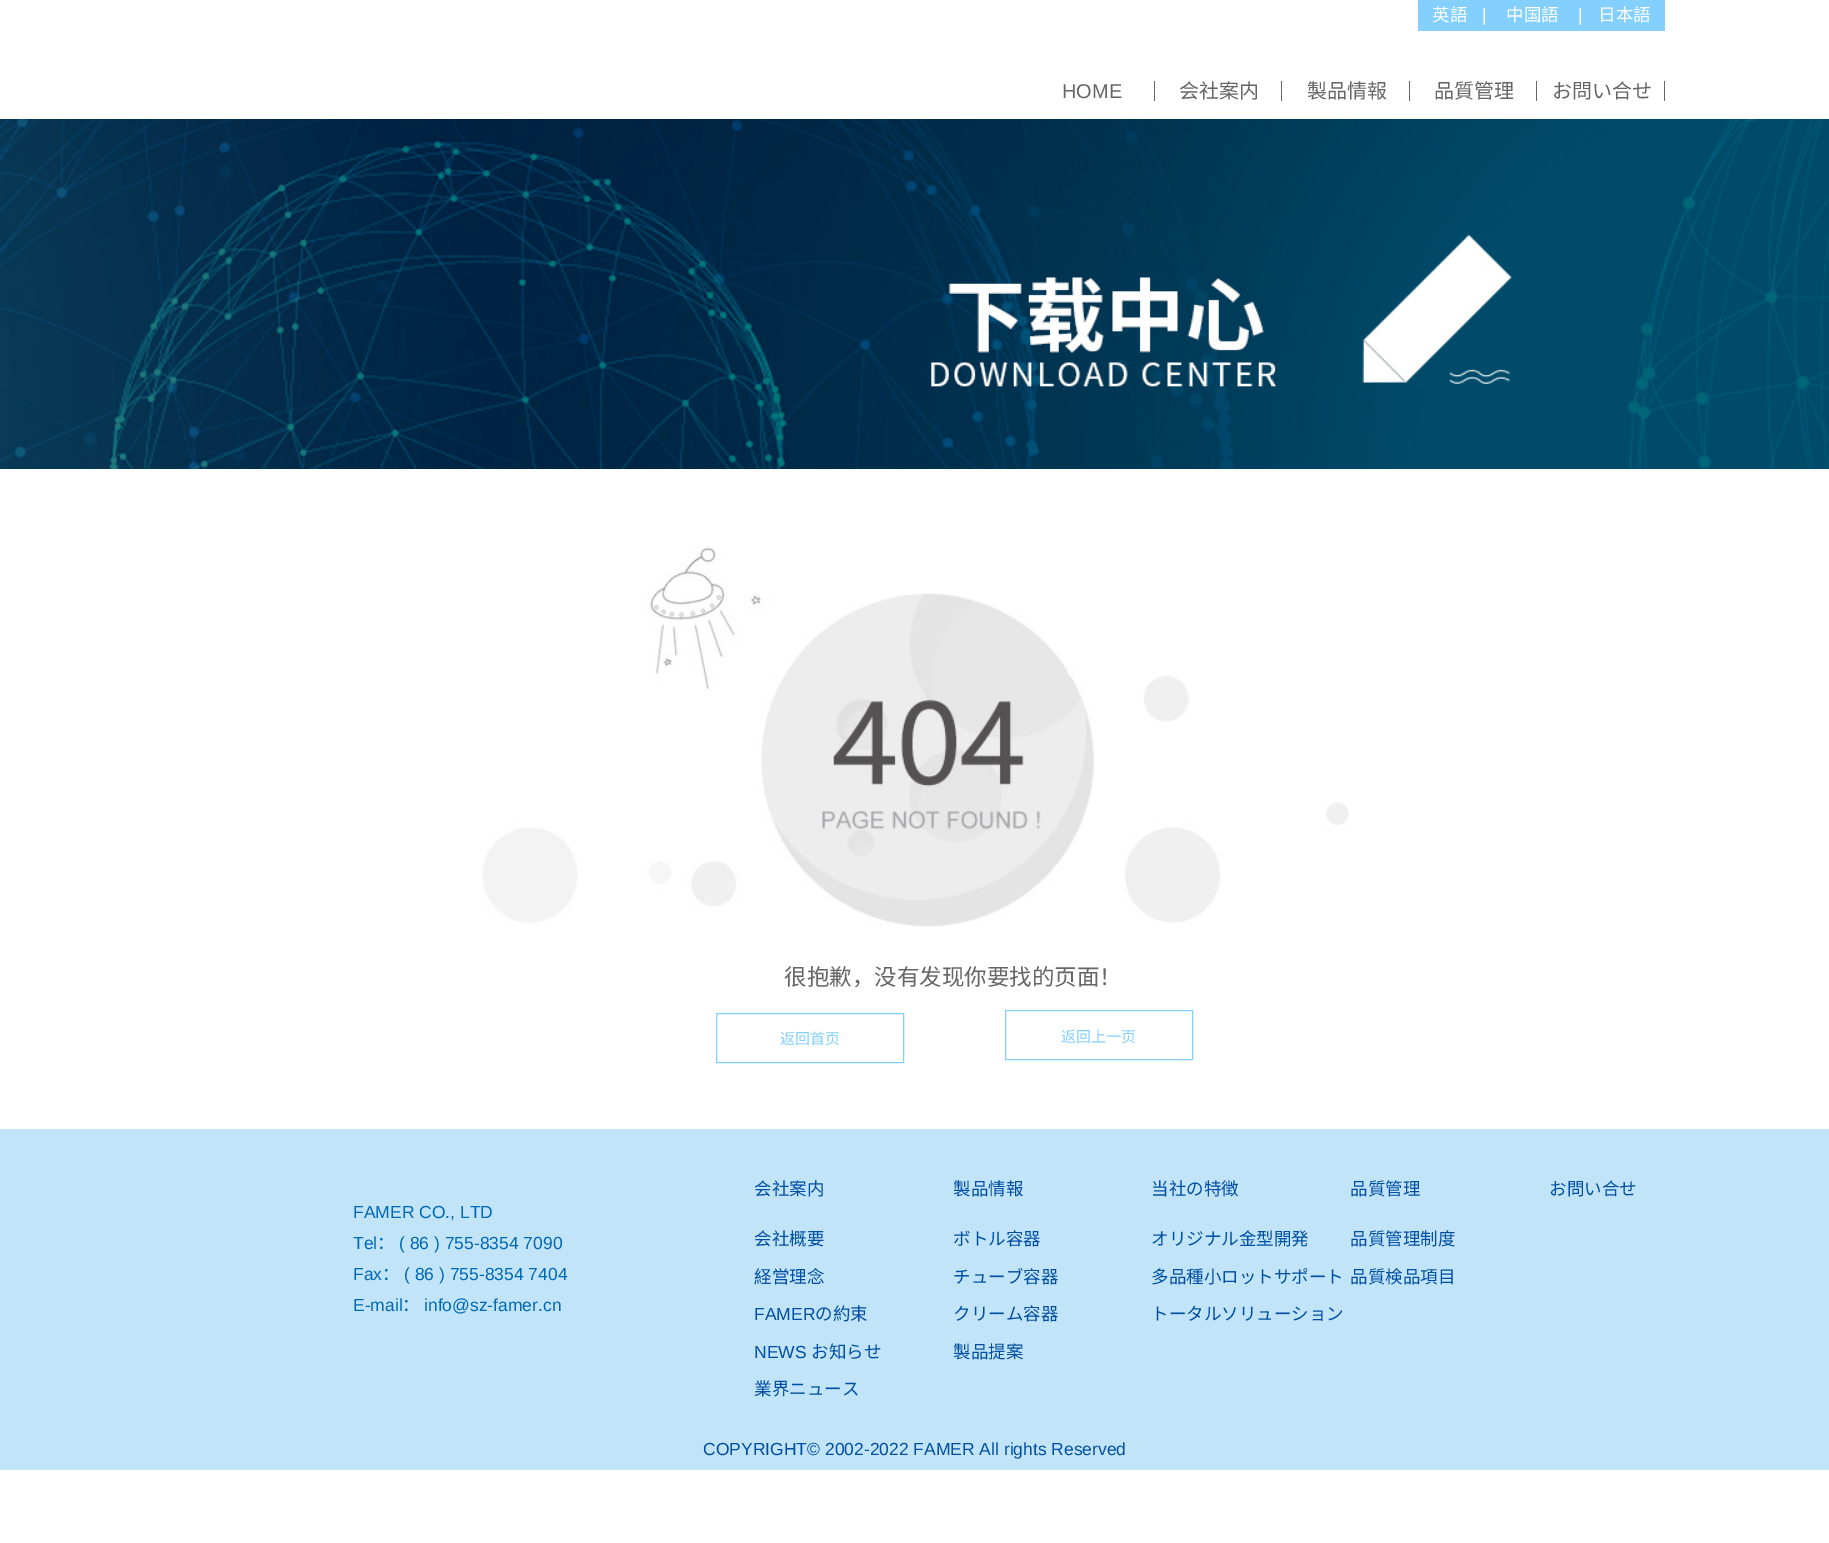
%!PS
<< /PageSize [1829 1543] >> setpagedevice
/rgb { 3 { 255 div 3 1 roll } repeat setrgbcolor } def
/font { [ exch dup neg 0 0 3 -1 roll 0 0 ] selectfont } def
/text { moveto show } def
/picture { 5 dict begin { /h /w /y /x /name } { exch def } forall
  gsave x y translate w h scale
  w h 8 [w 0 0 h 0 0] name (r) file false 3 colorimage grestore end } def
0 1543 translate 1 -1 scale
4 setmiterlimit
255 255 255 rgb
0 0 1829 1543 rectfill
131 208 254 rgb
1418 0 247 31 rectfill
103 103 103 rgb
1154 81 1 20 rectfill
1281 81 1 20 rectfill
1409 81 1 20 rectfill
1536 81 1 20 rectfill
1664 81 1 20 rectfill
(img_01.rgb) 0 119 1829 350 picture
(img_02.rgb) 482 547 867 380 picture
131 208 254 rgb
716.5 1013.5 187 49 rectstroke
1005.5 1010.5 187 49 rectstroke
194 228 249 rgb
0 1129 1829 341 rectfill
/NotoSansCJKSC-Regular 17.5 font
255 255 255 rgb
(英語) 1432 21 text
/LiberationSans-Regular 17.5 font
(|) 1482 21 text
/NotoSansCJKSC-Regular 17.5 font
(中国語) 1506 21 text
/LiberationSans-Regular 17.5 font
(|) 1578 21 text
/NotoSansCJKSC-Regular 17.5 font
(日本語) 1598 21 text
/LiberationSans-Regular 20 font
102 102 102 rgb
(HOME) 1062 98 text
/NotoSansCJKSC-Regular 20 font
(会社案内) 1179 98 text
(製品情報) 1307 98 text
(品質管理) 1434 98 text
(お問い合せ) 1552 98 text
/NotoSansCJKSC-Regular 22.5 font
(很抱歉，没有发现你要找的页面！) 784 985 text
/NotoSansCJKSC-Regular 15 font
131 208 254 rgb
(返回首页) 780 1044 text
(返回上一页) 1061 1042 text
/LiberationSans-Regular 17.5 font
0 104 183 rgb
(FAMER CO., LTD) 353 1218 text
(Tel) 353 1249 text
/NotoSansCJKSC-Regular 17.5 font
(：) 377 1249 text
/LiberationSans-Regular 17.5 font
(\( 86 \) 755-8354 7090) 399 1249 text
(Fax) 353 1280 text
/NotoSansCJKSC-Regular 17.5 font
(：) 382 1280 text
/LiberationSans-Regular 17.5 font
(\( 86 \) 755-8354 7404) 404 1280 text
(E-mail) 353 1311 text
/NotoSansCJKSC-Regular 17.5 font
(：) 402 1311 text
/LiberationSans-Regular 17.5 font
(info@sz-famer.cn) 424 1311 text
/NotoSansCJKSC-Regular 17.5 font
0 79 163 rgb
(会社案内) 754 1195 text
(会社概要) 754 1245 text
(経営理念) 754 1283 text
/LiberationSans-Regular 17.5 font
(FAMER) 754 1320 text
/NotoSansCJKSC-Regular 17.5 font
(の約束) 815 1320 text
/LiberationSans-Regular 17.5 font
(NEWS) 754 1358 text
/NotoSansCJKSC-Regular 17.5 font
(お知らせ) 811 1358 text
(業界ニュース) 754 1395 text
(製品情報) 953 1195 text
(ボトル容器) 953 1245 text
(チューブ容器) 953 1283 text
(クリーム容器) 953 1320 text
(製品提案) 953 1358 text
(当社の特徴) 1151 1195 text
(オリジナル金型開発) 1151 1245 text
(多品種小ロットサポート) 1151 1283 text
(トータルソリューション) 1151 1320 text
(品質管理) 1350 1195 text
(品質管理制度) 1350 1245 text
(品質検品項目) 1350 1283 text
(お問い合せ) 1549 1195 text
/LiberationSans-Regular 17.5 font
(COPYRIGHT© 2002-2022 FAMER All rights Reserved) 703 1455 text
showpage
